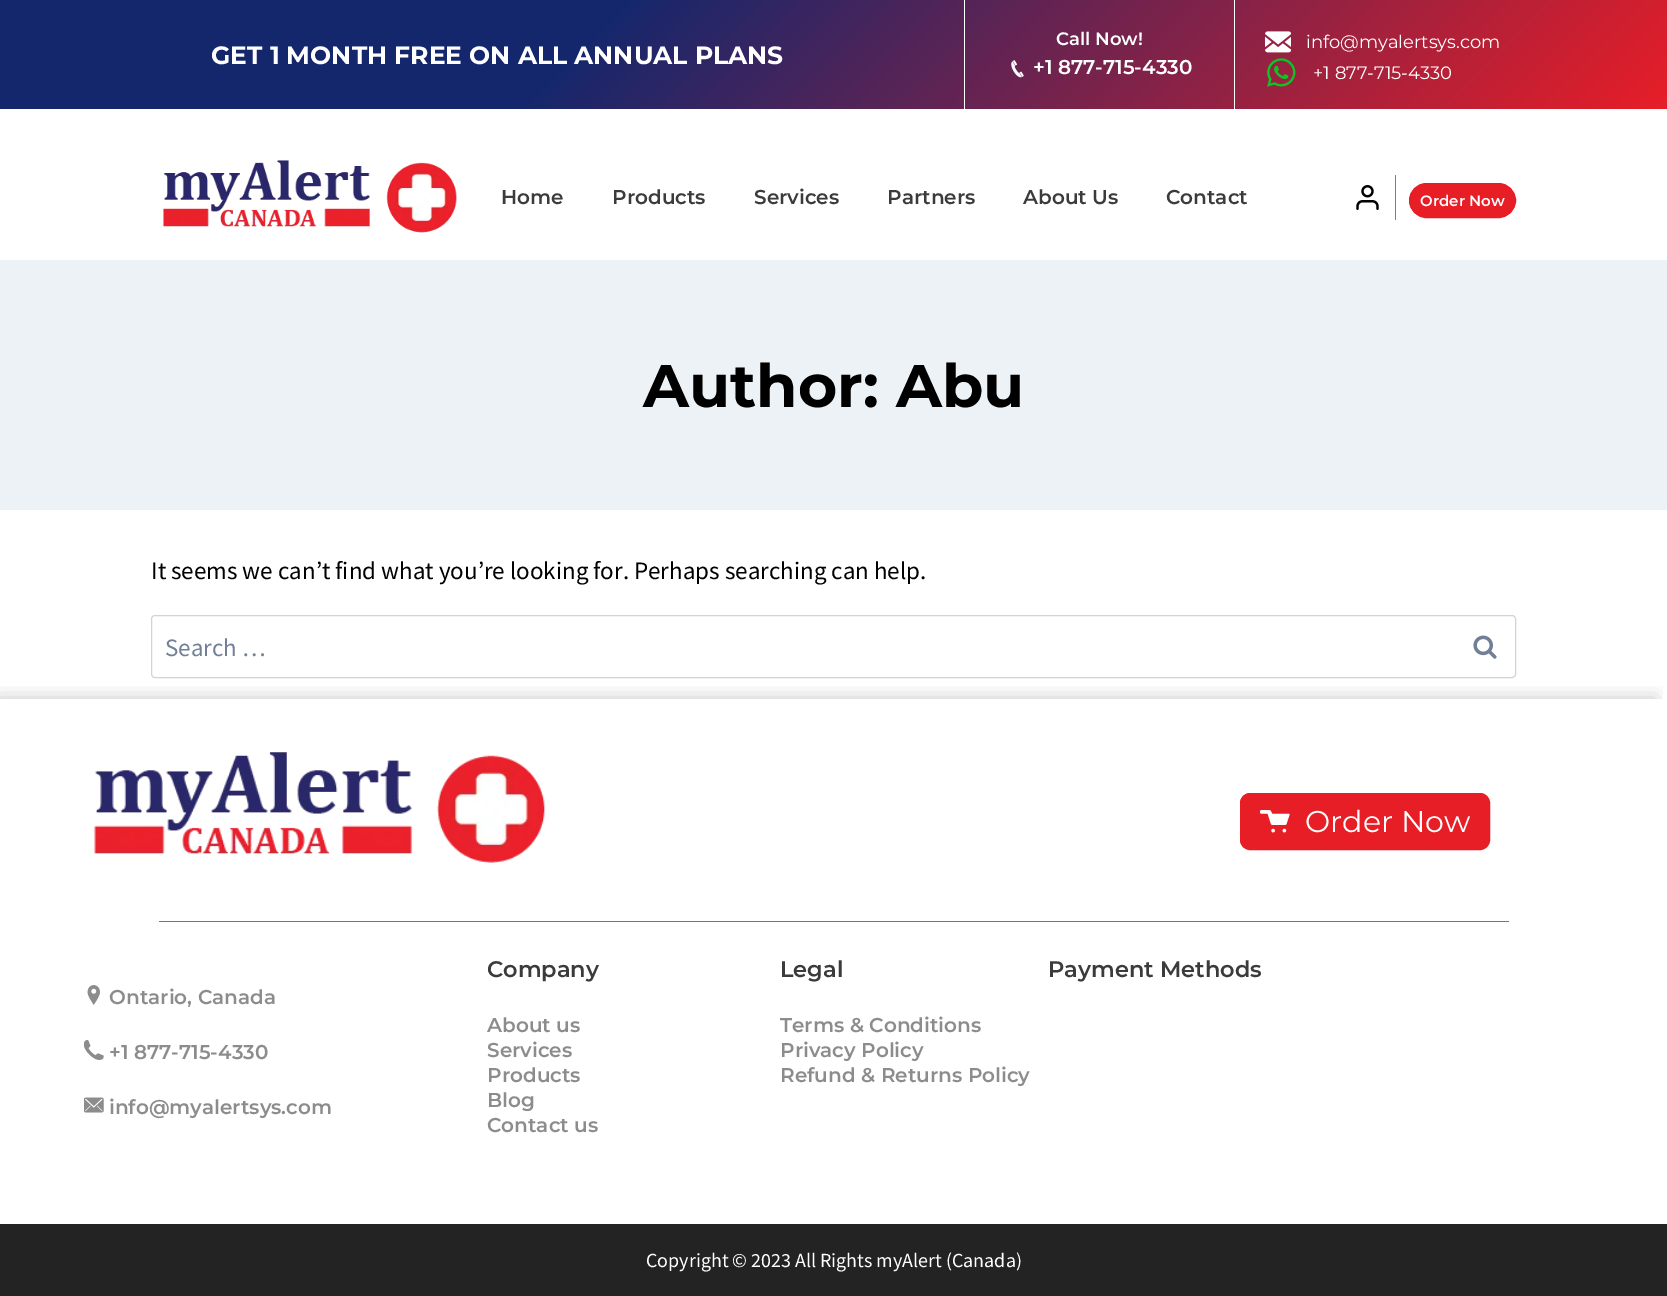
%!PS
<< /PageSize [1667 1296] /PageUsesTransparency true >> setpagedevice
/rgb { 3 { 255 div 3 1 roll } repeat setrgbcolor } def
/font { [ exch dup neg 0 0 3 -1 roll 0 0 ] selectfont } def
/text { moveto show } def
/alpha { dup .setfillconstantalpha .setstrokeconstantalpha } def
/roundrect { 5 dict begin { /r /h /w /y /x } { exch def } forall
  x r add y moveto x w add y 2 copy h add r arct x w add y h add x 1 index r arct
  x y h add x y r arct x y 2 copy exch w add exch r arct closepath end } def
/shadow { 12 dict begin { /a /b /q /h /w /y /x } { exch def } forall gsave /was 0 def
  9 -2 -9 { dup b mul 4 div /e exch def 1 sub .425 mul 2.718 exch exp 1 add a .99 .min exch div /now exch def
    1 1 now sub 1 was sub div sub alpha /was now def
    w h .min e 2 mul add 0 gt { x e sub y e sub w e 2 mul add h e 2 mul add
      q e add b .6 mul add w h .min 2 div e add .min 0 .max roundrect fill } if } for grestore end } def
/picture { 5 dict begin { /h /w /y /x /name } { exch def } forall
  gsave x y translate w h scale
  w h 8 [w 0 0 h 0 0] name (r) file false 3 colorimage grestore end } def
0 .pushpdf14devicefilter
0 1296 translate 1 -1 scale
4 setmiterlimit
255 255 255 rgb
0 0 1667 1296 rectfill
gsave 0 0 moveto 1667 0 rlineto 0 109 rlineto -1667 0 rlineto closepath clip newpath
<< /ShadingType 2 /ColorSpace /DeviceRGB /Coords [390 -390 1278 498] /Extend [true true] /Function << /FunctionType 3 /Domain [0 1] /Functions [<< /FunctionType 2 /Domain [0 1] /C0 [0.078 0.153 0.427] /C1 [0.078 0.153 0.427] /N 1 >> << /FunctionType 2 /Domain [0 1] /C0 [0.078 0.153 0.427] /C1 [0.91 0.118 0.153] /N 1 >>] /Bounds [0.35] /Encode [0 1 0 1] >> >> shfill grestore
964 0 1 109 rectfill
1234 0 1 109 rectfill
(img_01.rgb) 1011 60 13 18 picture
(img_02.rgb) 1265 31 26 22 picture
(img_03.rgb) 1267 58 29 29 picture
(img_04.rgb) 163 160 294 73 picture
(img_05.rgb) 1356 185 23 25 picture
113 128 150 rgb
1395 175 1 45 rectfill
232 30 39 rgb
1409.5 183.5 106 34 17 roundrect gsave fill grestore
stroke
237 242 247 rgb
0 260 1667 250 rectfill
203 213 224 rgb
151.5 615.5 1364 62 3.5 roundrect stroke
(img_06.rgb) 1473 635 24 24 picture
gsave
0 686 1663 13 rectclip
0 0 0 rgb
-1 698 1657 587 0 9 0.2 shadow
grestore
(img_07.rgb) 94 752 451 111 picture
232 30 39 rgb
1240.5 793.5 249 56 9.5 roundrect gsave fill grestore
stroke
(img_08.rgb) 1260 810 30 23 picture
117 117 117 rgb
159 921 1350 1 rectfill
(img_09.rgb) 87 985 13 20 picture
(img_10.rgb) 84 1040 20 20 picture
(img_11.rgb) 84 1097 20 16 picture
35 35 35 rgb
0 1224 1667 72 rectfill
/Montserrat-Bold 25 font
255 255 255 rgb
(GET 1 MONTH FREE ON ALL ANNUAL PLANS) 211 64 text
/Montserrat-SemiBold 18 font
(Call Now!) 1056 45 text
/Montserrat-SemiBold 20 font
(+1 877-715-4330) 1033 74 text
/Montserrat-Regular 18 font
(info@myalertsys.com) 1306 48 text
(+1 877-715-4330) 1313 79 text
/Montserrat-SemiBold 20 font
59 59 59 rgb
(Home) 501 204 text
(Products) 612 204 text
(Services) 754 204 text
(Partners) 887 204 text
(About Us) 1023 204 text
(Contact) 1166 204 text
/Montserrat-SemiBold 15 font
255 255 255 rgb
(Order Now) 1420 206 text
/Montserrat-Bold 60 font
0 0 0 rgb
(Author: Abu) 643 407 text
/SourceSansPro-Regular 25 font
(It seems we can’t find what you’re looking for. Perhaps searching can help.) 151 579 text
113 128 150 rgb
(Search …) 165 656 text
/Montserrat-Regular 30 font
255 255 255 rgb
(Order Now) 1305 832 text
/Montserrat-SemiBold 20 font
140 140 140 rgb
(Ontario, Canada) 109 1004 text
(+1 877-715-4330) 109 1059 text
(info@myalertsys.com) 109 1114 text
/Montserrat-SemiBold 22.5 font
59 59 59 rgb
(Company) 487 977 text
/Montserrat-SemiBold 20 font
140 140 140 rgb
(About us) 487 1032 text
(Services) 487 1057 text
(Products) 487 1082 text
(Blog) 487 1107 text
(Contact us) 487 1132 text
/Montserrat-SemiBold 22.5 font
59 59 59 rgb
(Legal) 780 977 text
/Montserrat-SemiBold 20 font
140 140 140 rgb
(Terms & Conditions) 780 1032 text
(Privacy Policy) 780 1057 text
(Refund & Returns Policy) 780 1082 text
/Montserrat-SemiBold 22.5 font
59 59 59 rgb
(Payment Methods) 1048 977 text
/SourceSansPro-Regular 20 font
255 255 255 rgb
(Copyright © 2023 All Rights myAlert \(Canada\)) 646 1267 text
.poppdf14devicefilter showpage
